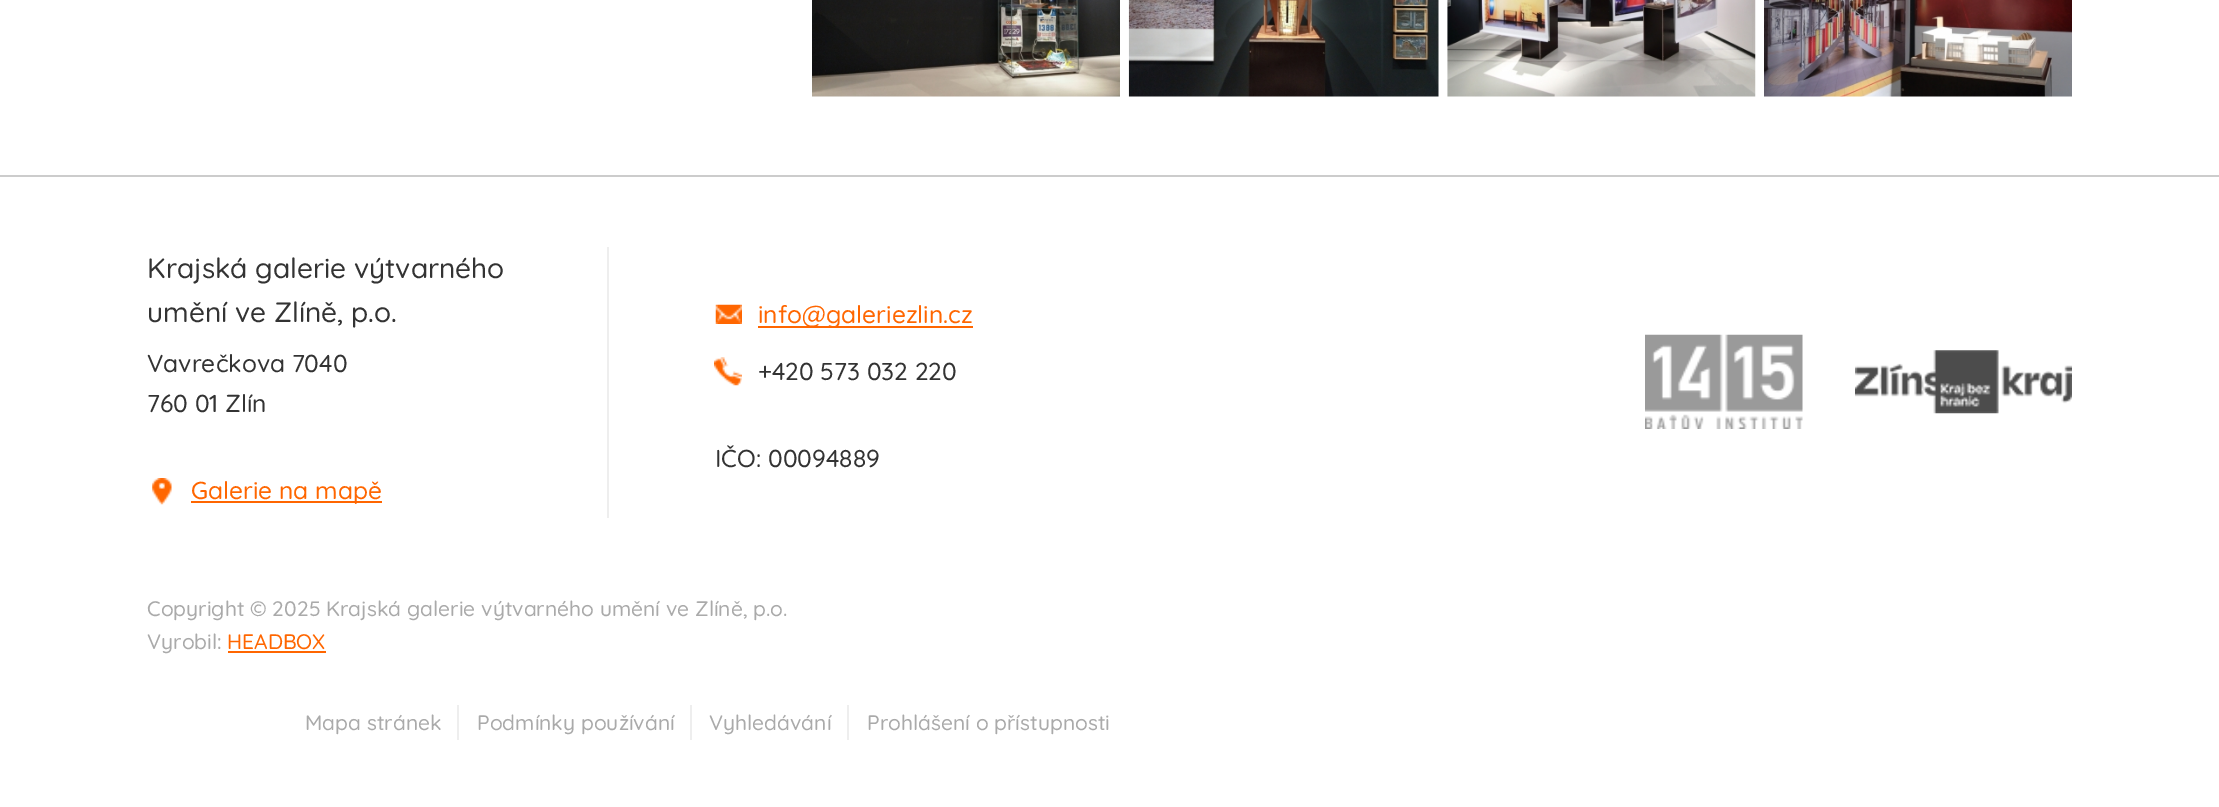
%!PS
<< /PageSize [2219 807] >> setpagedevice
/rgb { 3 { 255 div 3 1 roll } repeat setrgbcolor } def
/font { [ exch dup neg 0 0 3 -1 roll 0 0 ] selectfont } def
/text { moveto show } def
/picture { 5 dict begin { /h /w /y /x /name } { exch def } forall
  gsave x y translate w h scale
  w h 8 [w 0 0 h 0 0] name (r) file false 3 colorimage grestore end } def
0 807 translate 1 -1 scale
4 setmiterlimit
255 255 255 rgb
0 0 2219 807 rectfill
(img_01.rgb) 812 0 308 97 picture
(img_02.rgb) 1128 0 311 97 picture
(img_03.rgb) 1447 0 309 97 picture
(img_04.rgb) 1764 0 308 97 picture
204 204 204 rgb
0 175 2219 2 rectfill
238 238 238 rgb
607 247 2 271 rectfill
(img_05.rgb) 152 478 20 27 picture
255 102 0 rgb
191 501 191 2 rectfill
(img_06.rgb) 715 304 27 20 picture
758 326 215 2 rectfill
(img_07.rgb) 714 357 28 29 picture
(img_08.rgb) 1645 334 158 95 picture
(img_09.rgb) 1855 350 217 64 picture
228 651 98 2 rectfill
238 238 238 rgb
457 705 2 35 rectfill
690 705 2 35 rectfill
847 705 2 35 rectfill
/Quicksand-Medium 28 font
51 51 51 rgb
(Krajská galerie výtvarného) 147 278 text
(umění ve Zlíně, p.o.) 147 322 text
/Quicksand-Medium 24.5 font
(Vavrečkova 7040) 147 372 text
(760 01 Zlín) 147 412 text
255 102 0 rgb
(Galerie na mapě) 191 499 text
(info@galeriezlin.cz) 758 323 text
51 51 51 rgb
(+420 573 032 220) 758 380 text
(IČO: 00094889) 715 467 text
/Quicksand-Medium 21 font
170 170 170 rgb
(Copyright © 2025 Krajská galerie výtvarného umění ve Zlíně, p.o.) 147 616 text
(Vyrobil:) 147 649 text
255 102 0 rgb
(HEADBOX) 227 649 text
170 170 170 rgb
(Mapa stránek) 305 730 text
(Podmínky používání) 477 730 text
(Vyhledávání) 709 730 text
(Prohlášení o přístupnosti) 867 730 text
showpage
